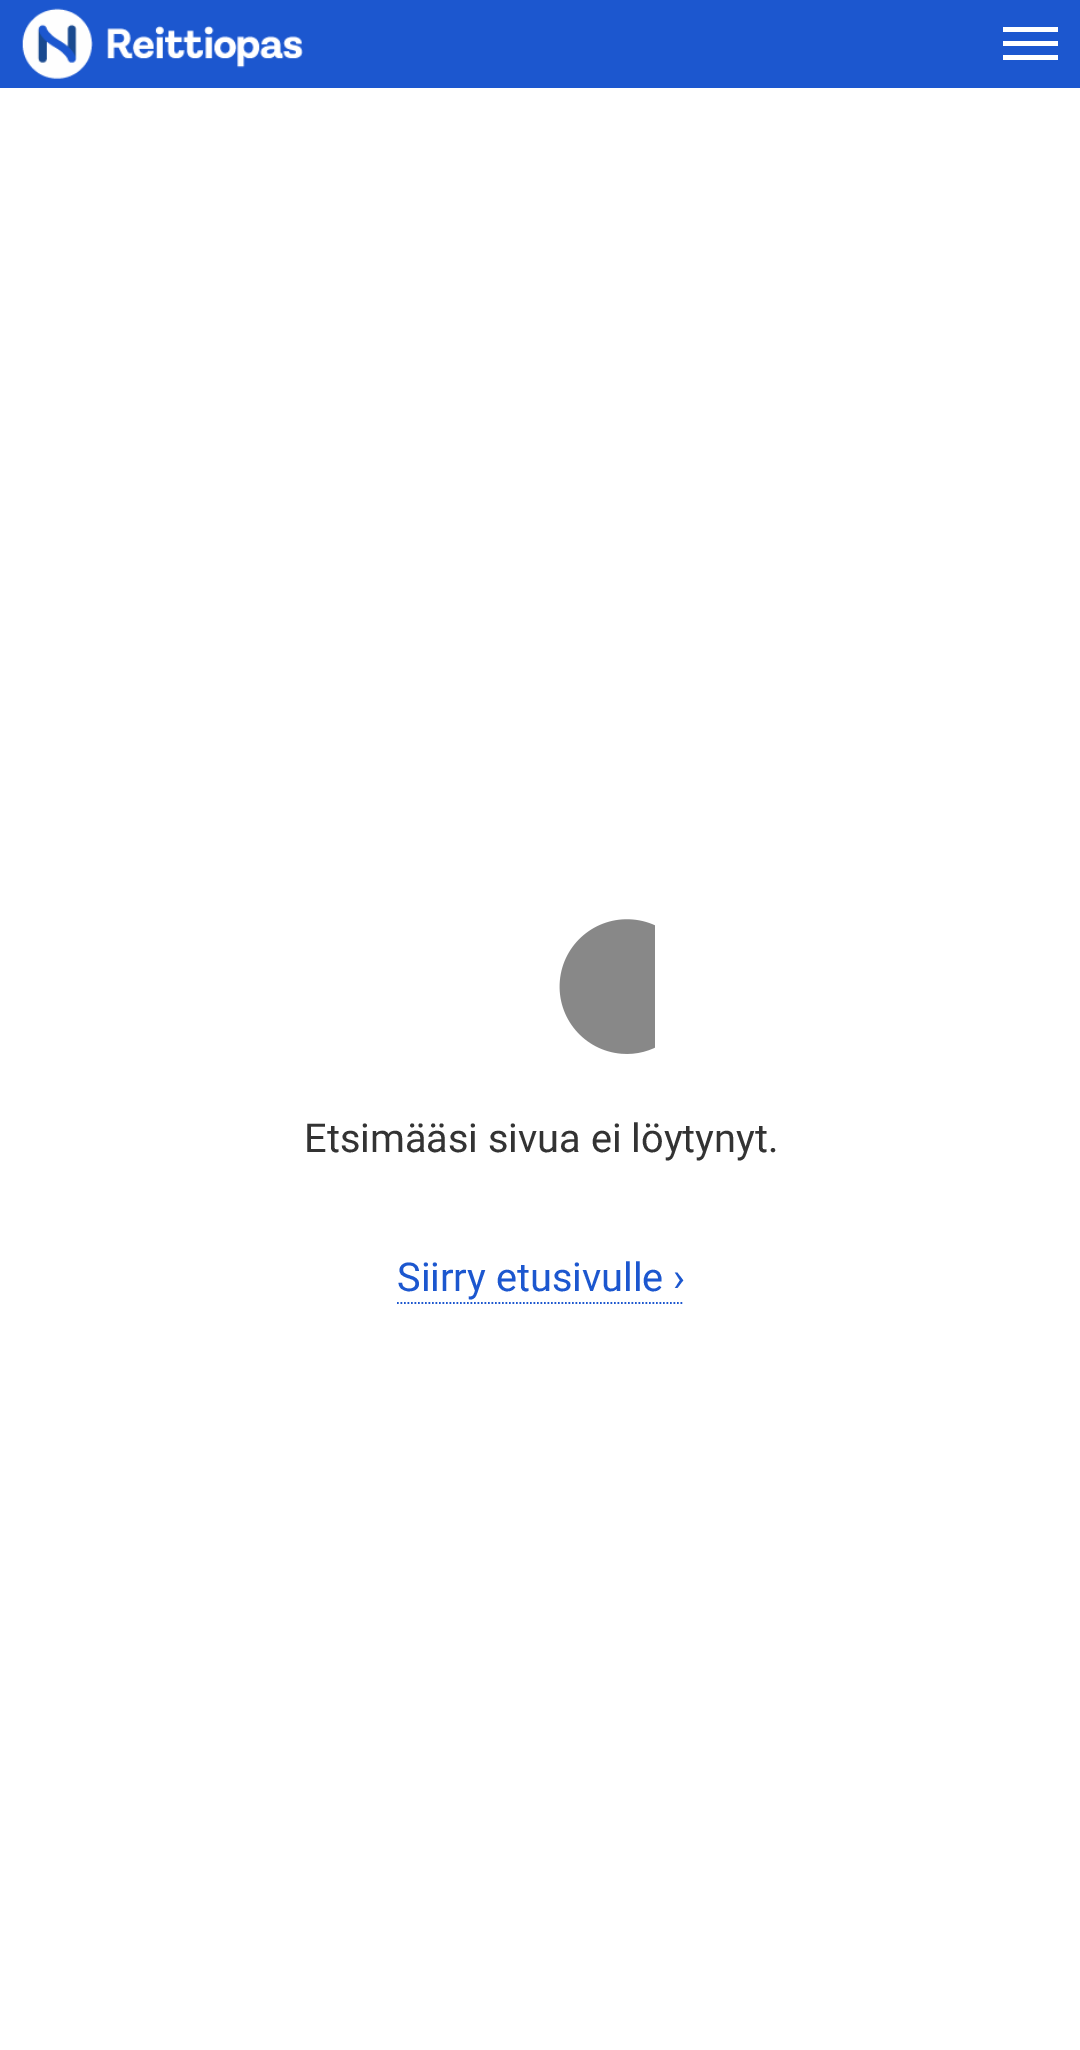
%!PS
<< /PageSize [1080 2050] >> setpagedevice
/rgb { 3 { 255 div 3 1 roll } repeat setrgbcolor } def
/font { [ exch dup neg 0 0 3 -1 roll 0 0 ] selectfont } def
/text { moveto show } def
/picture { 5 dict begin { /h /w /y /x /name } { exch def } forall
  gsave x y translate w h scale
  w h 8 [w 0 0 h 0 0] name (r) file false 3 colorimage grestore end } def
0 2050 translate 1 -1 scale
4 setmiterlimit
255 255 255 rgb
0 0 1080 2050 rectfill
28 87 207 rgb
0 0 1080 88 rectfill
(img_01.rgb) 22 8 281 71 picture
255 255 255 rgb
1003 27 moveto 55 0 rlineto 0 5 rlineto -55 0 rlineto closepath 1003 41 moveto 55 0 rlineto 0 5 rlineto -55 0 rlineto closepath 1003 55 moveto 55 0 rlineto 0 5 rlineto -55 0 rlineto closepath fill
(img_02.rgb) 559 919 96 135 picture
28 87 207 rgb
1.8 setlinewidth
[1.75 1.75] 0 setdash
397 1303 moveto 287 0 rlineto stroke
/Roboto-Regular 39.75 font
51 51 51 rgb
(Etsimääsi sivua ei löytynyt.) 304 1152 text
28 87 207 rgb
(Siirry etusivulle ›) 397 1291 text
showpage
